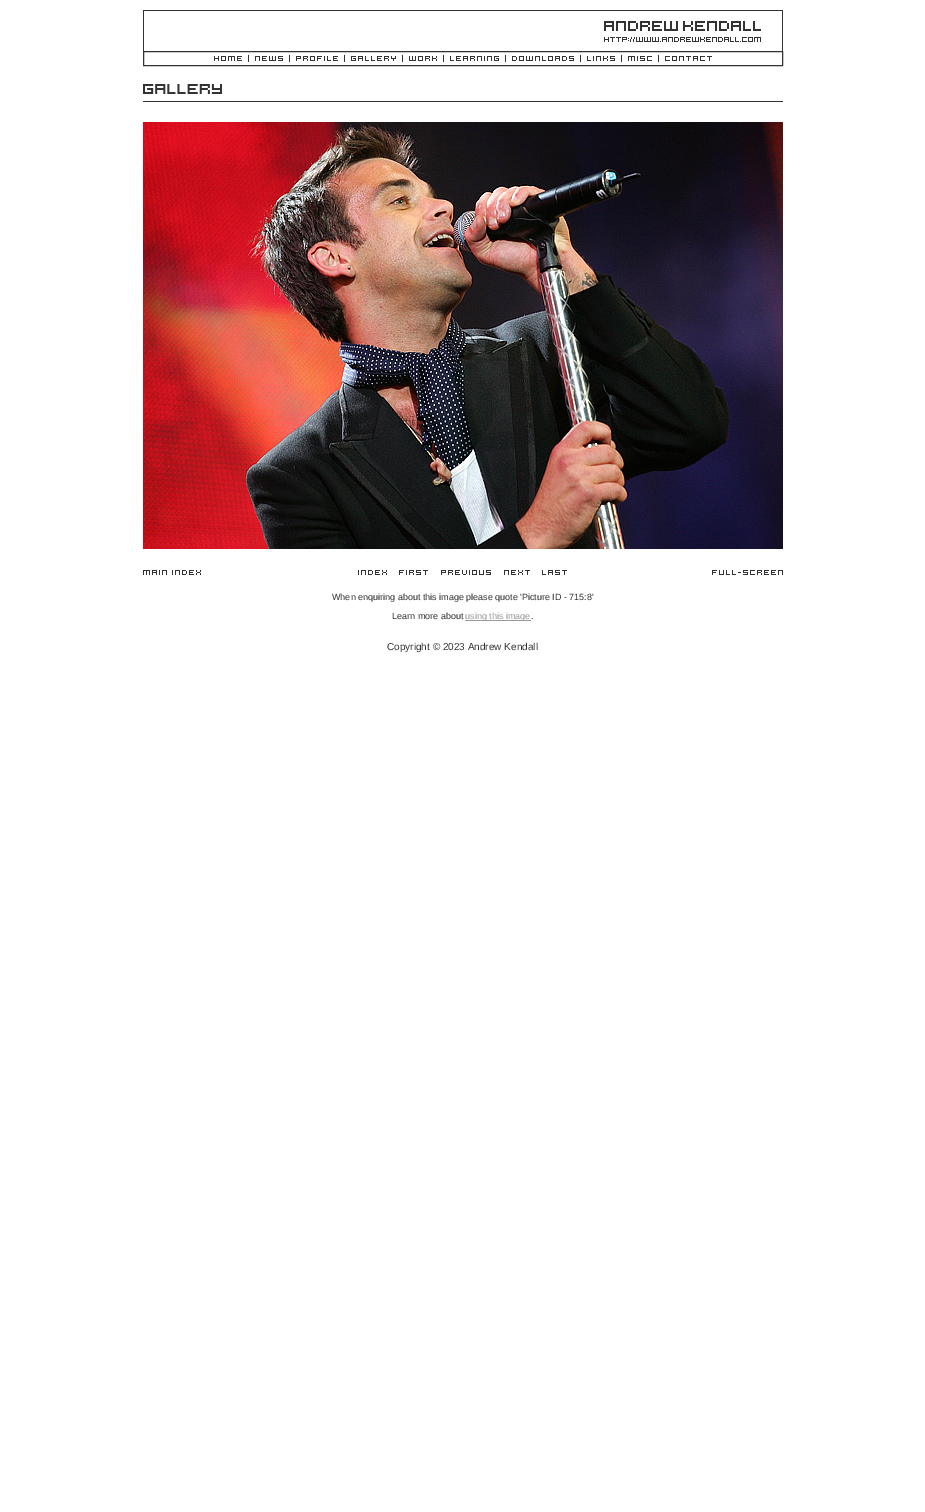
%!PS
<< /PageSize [925 1512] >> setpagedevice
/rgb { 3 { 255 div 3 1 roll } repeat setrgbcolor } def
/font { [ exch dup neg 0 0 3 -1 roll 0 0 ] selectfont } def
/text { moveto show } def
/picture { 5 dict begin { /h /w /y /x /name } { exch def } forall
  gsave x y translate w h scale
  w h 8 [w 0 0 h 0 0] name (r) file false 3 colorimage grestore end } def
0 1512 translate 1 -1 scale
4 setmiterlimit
255 255 255 rgb
0 0 925 1512 rectfill
(img_01.rgb) 604 21 157 21 picture
51 51 51 rgb
143 10 640 1 rectfill
782 10 1 41 rectfill
143 10 1 41 rectfill
143.5 51.5 639 14 rectstroke
(img_02.rgb) 214 55 498 7 picture
143 101 640 1 rectfill
(img_03.rgb) 143 84 79 10 picture
(img_04.rgb) 143 122 640 427 picture
(img_05.rgb) 143 570 58 5 picture
(img_06.rgb) 358 570 29 5 picture
(img_07.rgb) 399 570 29 5 picture
(img_08.rgb) 441 570 50 5 picture
(img_09.rgb) 504 570 26 5 picture
(img_10.rgb) 542 570 25 5 picture
(img_11.rgb) 712 570 71 5 picture
153 153 153 rgb
465 620 66 1 rectfill
/LiberationSans-Regular 9 font
51 51 51 rgb
(When enquiring about this image please quote 'Picture ID - 715:8') 332 600 text
(Learn more about) 392 619 text
153 153 153 rgb
(using this image) 465 619 text
51 51 51 rgb
(.) 531 619 text
/LiberationSans-Regular 10 font
(Copyright © 2023 Andrew Kendall) 387 650 text
showpage
